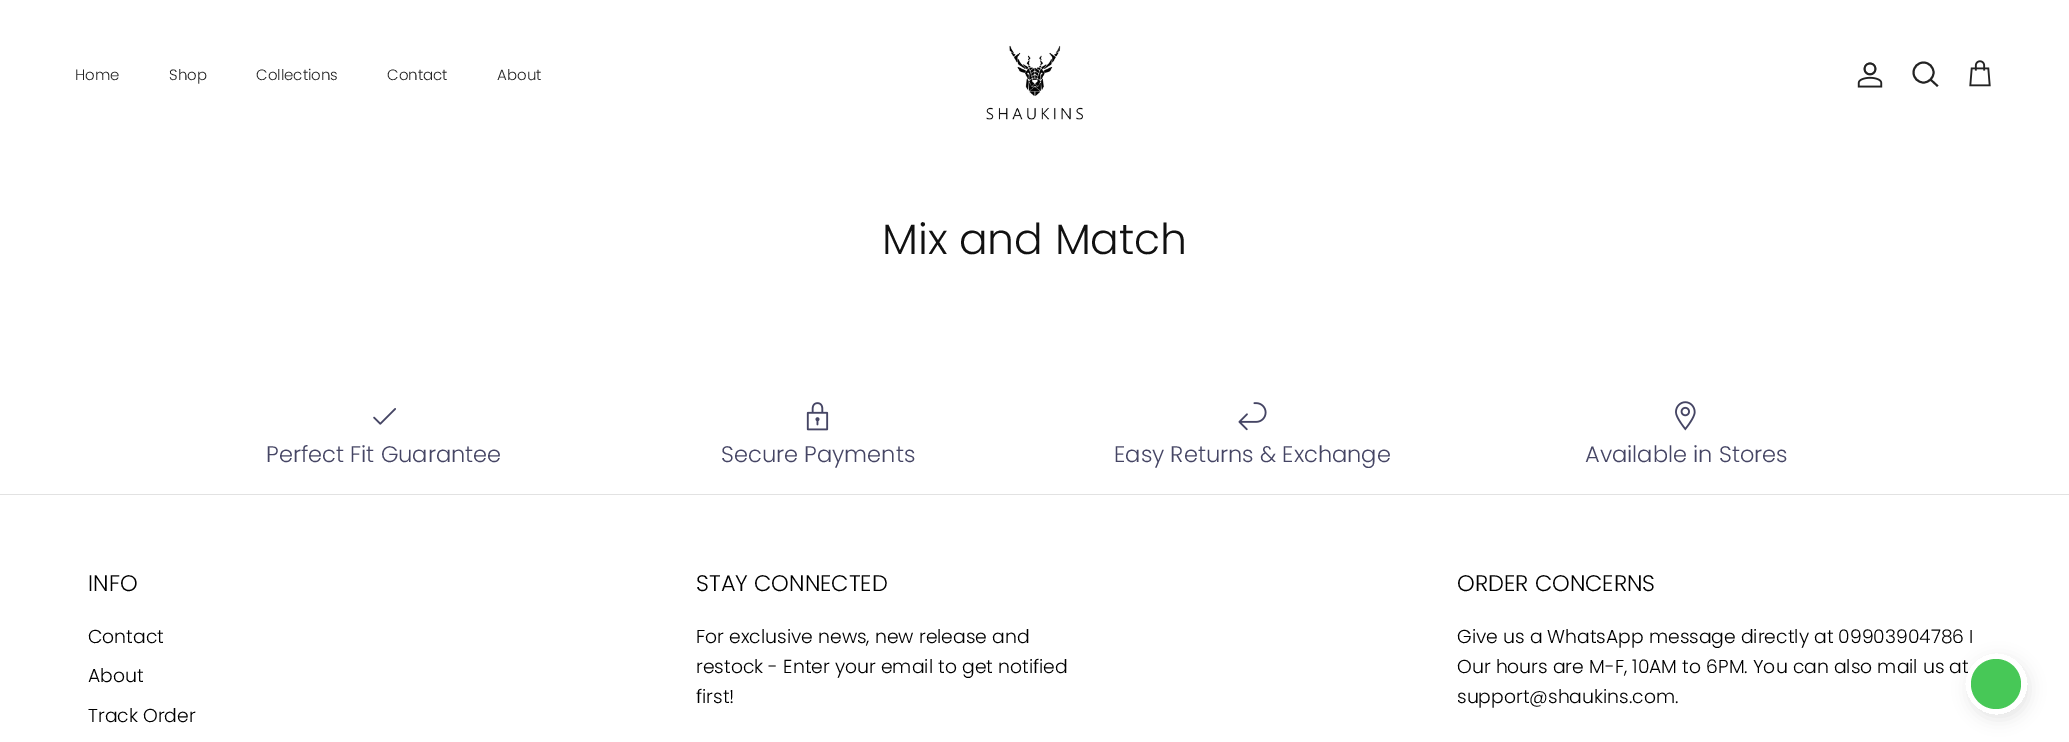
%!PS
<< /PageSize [2069 742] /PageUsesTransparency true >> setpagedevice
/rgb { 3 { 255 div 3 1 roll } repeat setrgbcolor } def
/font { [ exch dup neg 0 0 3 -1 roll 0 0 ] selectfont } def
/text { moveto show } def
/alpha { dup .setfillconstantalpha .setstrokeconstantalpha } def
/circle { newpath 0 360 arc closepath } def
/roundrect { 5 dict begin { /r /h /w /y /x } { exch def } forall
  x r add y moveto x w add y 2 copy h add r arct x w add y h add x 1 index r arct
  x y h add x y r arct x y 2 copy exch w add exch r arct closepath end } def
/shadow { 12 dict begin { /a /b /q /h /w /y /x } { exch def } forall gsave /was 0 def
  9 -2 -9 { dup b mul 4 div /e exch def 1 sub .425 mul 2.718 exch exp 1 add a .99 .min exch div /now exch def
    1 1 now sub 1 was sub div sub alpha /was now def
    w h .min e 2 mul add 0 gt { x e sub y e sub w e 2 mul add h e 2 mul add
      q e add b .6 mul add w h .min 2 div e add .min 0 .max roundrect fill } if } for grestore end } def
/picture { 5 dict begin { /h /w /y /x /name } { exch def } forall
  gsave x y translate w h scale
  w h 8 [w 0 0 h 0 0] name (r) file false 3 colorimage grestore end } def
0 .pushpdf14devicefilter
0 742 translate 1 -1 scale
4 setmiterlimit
255 255 255 rgb
0 0 2069 742 rectfill
(img_01.rgb) 986 45 97 75 picture
(img_02.rgb) 1857 62 26 26 picture
35 35 35 rgb
1.9 setlinewidth
1923.5 72.5 10 circle stroke
2 setlinecap
1931 80 moveto 6 5.5 rlineto stroke
(img_03.rgb) 1969 60 22 27 picture
(img_04.rgb) 373 408 23 17 picture
(img_05.rgb) 806 402 23 29 picture
(img_06.rgb) 1238 402 29 29 picture
(img_07.rgb) 1675 401 21 30 picture
226 226 226 rgb
0 494 2069 1 rectfill
gsave
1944 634 moveto 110 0 rlineto 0 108 rlineto -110 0 rlineto closepath 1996 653 moveto 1 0 rlineto 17 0 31 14 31 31 rcurveto 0 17 -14 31 -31 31 rcurveto -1 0 rlineto -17 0 -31 -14 -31 -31 rcurveto 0 -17 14 -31 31 -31 rcurveto closepath eoclip newpath
0 0 0 rgb
1968 658 62 62 31 7.5 0.09 shadow
grestore
71 200 87 rgb
1996 684 25 circle fill
/Poppins-Light 15 font
35 35 35 rgb
(Home) 75 80 text
(Shop) 169 80 text
(Collections) 256 80 text
(Contact) 387 80 text
(About) 497 80 text
/Poppins-Light 42.5 font
17 17 17 rgb
(Mix and Match) 882 254 text
/Poppins-Light 22.5 font
69 69 100 rgb
(Perfect Fit Guarantee) 266 462 text
(Secure Payments) 721 462 text
(Easy Returns & Exchange) 1114 462 text
(Available in Stores) 1585 462 text
0 0 0 rgb
(INFO) 88 591 text
/Poppins-Light 18.75 font
(Contact) 88 643 text
(About) 88 682 text
(Track Order) 88 722 text
/Poppins-Light 22.5 font
(STAY CONNECTED) 696 591 text
/Poppins-Light 18.75 font
(For exclusive news, new release and) 696 643 text
(restock - Enter your email to get notified) 696 673 text
(first!) 696 703 text
/Poppins-Light 22.5 font
(ORDER CONCERNS) 1457 591 text
/Poppins-Light 18.75 font
(Give us a WhatsApp message directly at 09903904786 I) 1457 643 text
(Our hours are M-F, 10AM to 6PM. You can also mail us at) 1457 673 text
(support@shaukins.com.) 1457 703 text
.poppdf14devicefilter showpage
